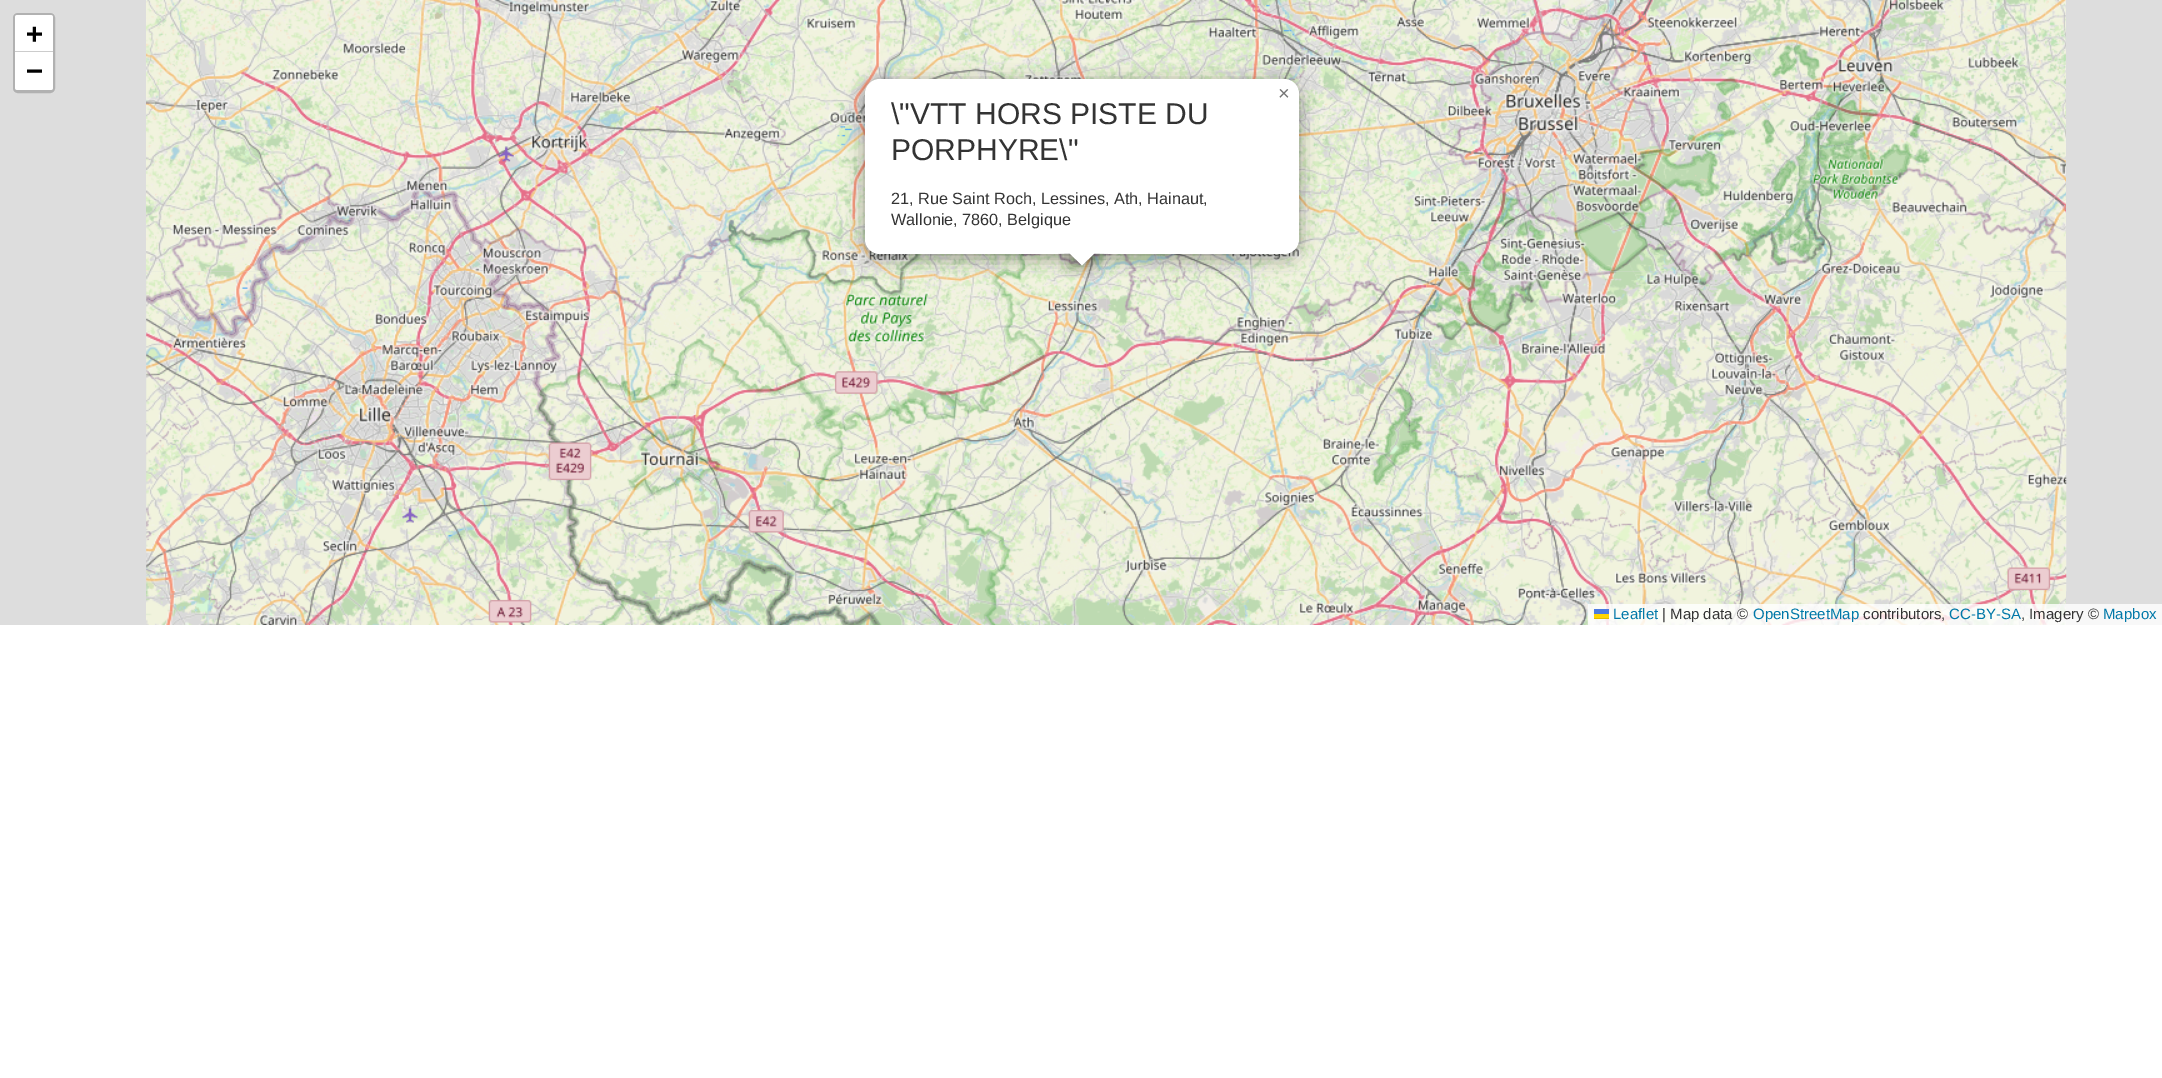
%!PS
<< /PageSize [2162 1078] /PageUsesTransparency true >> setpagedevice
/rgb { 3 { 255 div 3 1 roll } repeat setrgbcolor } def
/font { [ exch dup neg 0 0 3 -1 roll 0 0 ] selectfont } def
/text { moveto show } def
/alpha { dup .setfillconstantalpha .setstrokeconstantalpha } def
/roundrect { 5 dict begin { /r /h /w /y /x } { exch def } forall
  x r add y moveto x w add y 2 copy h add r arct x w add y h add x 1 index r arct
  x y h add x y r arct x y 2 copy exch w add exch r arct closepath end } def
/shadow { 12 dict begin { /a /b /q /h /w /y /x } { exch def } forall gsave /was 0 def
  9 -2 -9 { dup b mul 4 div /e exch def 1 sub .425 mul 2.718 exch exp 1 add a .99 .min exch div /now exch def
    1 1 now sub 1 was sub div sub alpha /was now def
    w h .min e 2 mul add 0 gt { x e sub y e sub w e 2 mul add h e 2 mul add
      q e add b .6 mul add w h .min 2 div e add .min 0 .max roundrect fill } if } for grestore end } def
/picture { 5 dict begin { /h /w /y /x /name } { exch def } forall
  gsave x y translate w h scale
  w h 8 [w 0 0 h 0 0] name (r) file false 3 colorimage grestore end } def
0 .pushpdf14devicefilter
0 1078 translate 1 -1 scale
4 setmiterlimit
255 255 255 rgb
0 0 2162 1078 rectfill
221 221 221 rgb
0 0 2162 625 rectfill
177 177 177 rgb
3 setlinewidth
14.5 14.5 39 77 3.5 roundrect stroke
255 255 255 rgb
17.5 15 moveto 33 0 rlineto 1.5 0 2.5 1 2.5 2.5 rcurveto 0 35.5 rlineto -38 0 rlineto 0 -35.5 rlineto 0 -1.5 1 -2.5 2.5 -2.5 rcurveto closepath fill
204 204 204 rgb
15 51 38 1 rectfill
255 255 255 rgb
15 53 moveto 38 0 rlineto 0 34.5 rlineto 0 1.5 -1 2.5 -2.5 2.5 rcurveto -33 0 rlineto -1.5 0 -2.5 -1 -2.5 -2.5 rcurveto closepath fill
(img_17.rgb) 1426 591 320 34 picture
(img_09.rgb) 786 271 321 320 picture
(img_10.rgb) 1106 271 321 320 picture
(img_11.rgb) 1426 271 321 320 picture
(img_12.rgb) 1746 271 321 321 picture
(img_18.rgb) 1746 591 320 34 picture
0.8 alpha
1588 604 574 21 rectfill
1 alpha
76 123 225 rgb
1594 609 15 5 rectfill
255 213 0 rgb
1594 614 15 4 rectfill
224 188 0 rgb
1594 618 15 1 rectfill
(img_01.rgb) 146 0 320 271 picture
(img_02.rgb) 466 0 320 271 picture
(img_03.rgb) 786 0 320 271 picture
(img_04.rgb) 1106 0 320 271 picture
(img_05.rgb) 1426 0 320 271 picture
(img_06.rgb) 1746 0 320 271 picture
(img_15.rgb) 786 591 320 34 picture
(img_08.rgb) 466 271 321 321 picture
(img_14.rgb) 466 591 320 34 picture
(img_07.rgb) 146 271 321 321 picture
(img_13.rgb) 146 591 320 34 picture
(img_16.rgb) 1106 591 320 34 picture
0 0 0 rgb
865 83 434 175 15 9 0.4 shadow
255 255 255 rgb
865 79 434 175 15 roundrect fill
gsave
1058 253 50 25 rectclip
0 0 0 rgb
1071 244 22 21 0 9 0.4 shadow
grestore
gsave
1058 253 50 25 rectclip
1082 235.5 moveto 15 15 rlineto -15 15 rlineto -15 -15 rlineto closepath fill
grestore
/DejaVuSansMono-Bold 28 font
0 0 0 rgb
(+) 26 43 text
(−) 26 80 text
/LiberationSans-Regular 15 font
0 120 168 rgb
(Leaflet) 1613 619 text
51 51 51 rgb
(| Map data ©) 1662 619 text
0 120 168 rgb
(OpenStreetMap) 1753 619 text
51 51 51 rgb
(contributors,) 1863 619 text
0 120 168 rgb
(CC-BY-SA) 1949 619 text
51 51 51 rgb
(, Imagery ©) 2021 619 text
0 120 168 rgb
(Mapbox) 2103 619 text
/LiberationSans-Regular 20 font
117 117 117 rgb
(×) 1278 100 text
/LiberationSans-Regular 30 font
51 51 51 rgb
(\\"VTT HORS PISTE DU) 891 124 text
(PORPHYRE\\") 891 160 text
/LiberationSans-Regular 16.25 font
(21, Rue Saint Roch, Lessines, Ath, Hainaut,) 891 204 text
(Wallonie, 7860, Belgique) 891 225 text
.poppdf14devicefilter showpage
